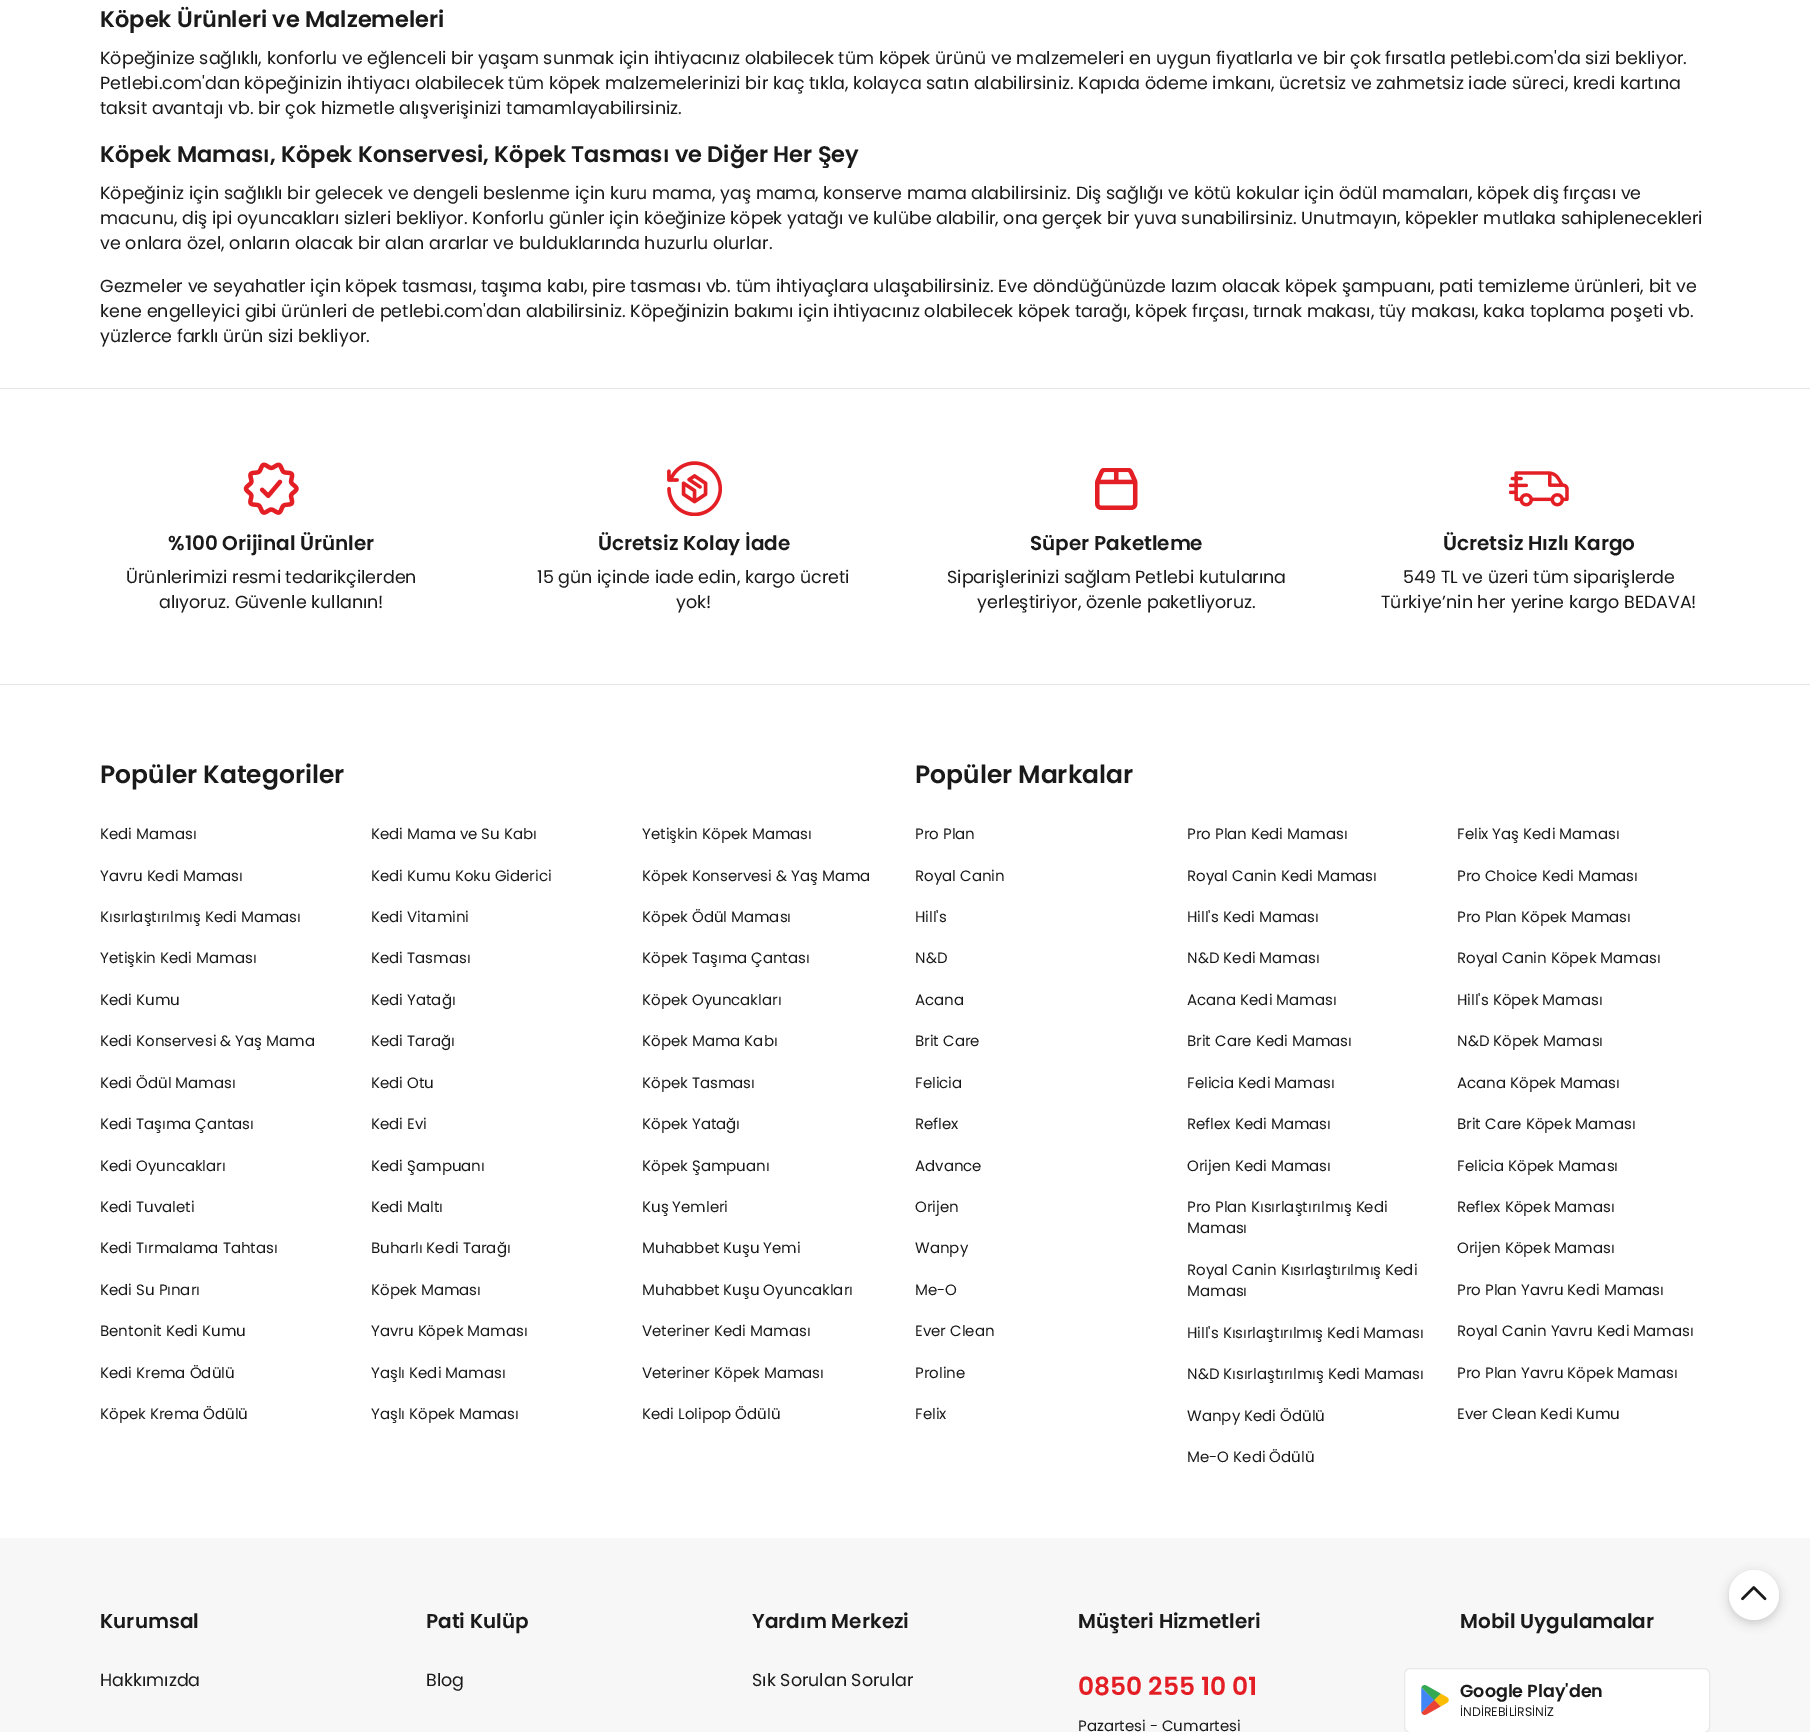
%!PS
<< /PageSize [1810 1732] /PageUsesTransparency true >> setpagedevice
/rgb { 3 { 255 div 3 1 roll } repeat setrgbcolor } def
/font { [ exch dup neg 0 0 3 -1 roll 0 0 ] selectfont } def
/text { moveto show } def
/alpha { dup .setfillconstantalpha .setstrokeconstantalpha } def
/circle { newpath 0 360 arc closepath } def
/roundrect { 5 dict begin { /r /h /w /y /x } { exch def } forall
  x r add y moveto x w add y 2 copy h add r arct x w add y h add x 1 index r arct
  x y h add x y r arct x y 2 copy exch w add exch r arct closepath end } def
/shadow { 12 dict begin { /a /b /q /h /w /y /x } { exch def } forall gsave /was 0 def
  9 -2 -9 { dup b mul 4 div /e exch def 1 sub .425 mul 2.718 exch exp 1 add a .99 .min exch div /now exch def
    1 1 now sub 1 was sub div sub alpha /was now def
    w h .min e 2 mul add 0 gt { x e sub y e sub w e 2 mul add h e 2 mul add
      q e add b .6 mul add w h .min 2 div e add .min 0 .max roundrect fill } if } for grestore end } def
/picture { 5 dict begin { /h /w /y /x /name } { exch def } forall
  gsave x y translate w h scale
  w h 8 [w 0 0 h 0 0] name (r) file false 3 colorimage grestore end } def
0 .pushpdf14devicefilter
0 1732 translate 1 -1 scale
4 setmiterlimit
255 255 255 rgb
0 0 1810 1732 rectfill
230 230 230 rgb
0 388 1810 1 rectfill
0 684 1810 1 rectfill
(img_01.rgb) 243 462 56 53 picture
(img_02.rgb) 667 461 55 55 picture
(img_03.rgb) 1095 468 43 42 picture
(img_04.rgb) 1509 471 60 36 picture
247 247 247 rgb
0 1538 1810 194 rectfill
255 255 255 rgb
1404.5 1668.5 305 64 5.5 roundrect gsave fill grestore
232 232 232 rgb
stroke
(img_05.rgb) 1421 1685 28 30 picture
26 26 26 rgb
1729 1573 50 50 25 5 0.2 shadow
255 255 255 rgb
1754 1595 25 circle fill
(img_06.rgb) 1741 1586 26 15 picture
/Poppins-SemiBold 22.5 font
26 26 26 rgb
(Köpek Ürünleri ve Malzemeleri) 100 27 text
/Poppins-Regular 17.5 font
(Köpeğinize sağlıklı, konforlu ve eğlenceli bir yaşam sunmak için ihtiyacınız olabilecek tüm köpek ürünü ve malzemeleri en uygun fiyatlarla ve bir çok fırsatla petlebi.com'da sizi bekliyor.) 100 64 text
(Petlebi.com'dan köpeğinizin ihtiyacı olabilecek tüm köpek malzemelerinizi bir kaç tıkla, kolayca satın alabilirsiniz. Kapıda ödeme imkanı, ücretsiz ve zahmetsiz iade süreci, kredi kartına) 100 89 text
(taksit avantajı vb. bir çok hizmetle alışverişinizi tamamlayabilirsiniz.) 100 114 text
/Poppins-SemiBold 22.5 font
(Köpek Maması, Köpek Konservesi, Köpek Tasması ve Diğer Her Şey) 100 162 text
/Poppins-Regular 17.5 font
(Köpeğiniz için sağlıklı bir gelecek ve dengeli beslenme için kuru mama, yaş mama, konserve mama alabilirsiniz. Diş sağlığı ve kötü kokular için ödül mamaları, köpek diş fırçası ve) 100 199 text
(macunu, diş ipi oyuncakları sizleri bekliyor. Konforlu günler için köeğinize köpek yatağı ve kulübe alabilir, ona gerçek bir yuva sunabilirsiniz. Unutmayın, köpekler mutlaka sahiplenecekleri) 100 224 text
(ve onlara özel, onların olacak bir alan ararlar ve bulduklarında huzurlu olurlar.) 100 249 text
(Gezmeler ve seyahatler için köpek tasması, taşıma kabı, pire tasması vb. tüm ihtiyaçlara ulaşabilirsiniz. Eve döndüğünüzde lazım olacak köpek şampuanı, pati temizleme ürünleri, bit ve) 100 292 text
(kene engelleyici gibi ürünleri de petlebi.com'dan alabilirsiniz. Köpeğinizin bakımı için ihtiyacınız olabilecek köpek tarağı, köpek fırçası, tırnak makası, tüy makası, kaka toplama poşeti vb.) 100 317 text
(yüzlerce farklı ürün sizi bekliyor.) 100 342 text
/Poppins-SemiBold 20 font
(%100 Orijinal Ürünler) 168 550 text
/Poppins-Regular 17.5 font
(Ürünlerimizi resmi tedarikçilerden) 126 583 text
(alıyoruz. Güvenle kullanın!) 159 608 text
/Poppins-SemiBold 20 font
(Ücretsiz Kolay İade) 598 550 text
/Poppins-Regular 17.5 font
(15 gün içinde iade edin, kargo ücreti) 537 583 text
(yok!) 676 608 text
/Poppins-SemiBold 20 font
(Süper Paketleme) 1030 550 text
/Poppins-Regular 17.5 font
(Siparişlerinizi sağlam Petlebi kutularına) 947 583 text
(yerleştiriyor, özenle paketliyoruz.) 977 608 text
/Poppins-SemiBold 20 font
(Ücretsiz Hızlı Kargo) 1443 550 text
/Poppins-Regular 17.5 font
(549 TL ve üzeri tüm siparişlerde) 1403 583 text
(Türkiye’nin her yerine kargo BEDAVA!) 1381 608 text
/Poppins-SemiBold 25 font
(Popüler Kategoriler) 100 783 text
/Poppins-Regular 15 font
(Kedi Maması) 100 839 text
(Kedi Mama ve Su Kabı) 371 839 text
(Yetişkin Köpek Maması) 642 839 text
(Yavru Kedi Maması) 100 881 text
(Kedi Kumu Koku Giderici) 371 881 text
(Köpek Konservesi & Yaş Mama) 642 881 text
(Kısırlaştırılmış Kedi Maması) 100 922 text
(Kedi Vitamini) 371 922 text
(Köpek Ödül Maması) 642 922 text
(Yetişkin Kedi Maması) 100 963 text
(Kedi Tasması) 371 963 text
(Köpek Taşıma Çantası) 642 963 text
(Kedi Kumu) 100 1005 text
(Kedi Yatağı) 371 1005 text
(Köpek Oyuncakları) 642 1005 text
(Kedi Konservesi & Yaş Mama) 100 1046 text
(Kedi Tarağı) 371 1046 text
(Köpek Mama Kabı) 642 1046 text
(Kedi Ödül Maması) 100 1088 text
(Kedi Otu) 371 1088 text
(Köpek Tasması) 642 1088 text
(Kedi Taşıma Çantası) 100 1129 text
(Kedi Evi) 371 1129 text
(Köpek Yatağı) 642 1129 text
(Kedi Oyuncakları) 100 1171 text
(Kedi Şampuanı) 371 1171 text
(Köpek Şampuanı) 642 1171 text
(Kedi Tuvaleti) 100 1212 text
(Kedi Maltı) 371 1212 text
(Kuş Yemleri) 642 1212 text
(Kedi Tırmalama Tahtası) 100 1253 text
(Buharlı Kedi Tarağı) 371 1253 text
(Muhabbet Kuşu Yemi) 642 1253 text
(Kedi Su Pınarı) 100 1295 text
(Köpek Maması) 371 1295 text
(Muhabbet Kuşu Oyuncakları) 642 1295 text
(Bentonit Kedi Kumu) 100 1336 text
(Yavru Köpek Maması) 371 1336 text
(Veteriner Kedi Maması) 642 1336 text
(Kedi Krema Ödülü) 100 1378 text
(Yaşlı Kedi Maması) 371 1378 text
(Veteriner Köpek Maması) 642 1378 text
(Köpek Krema Ödülü) 100 1419 text
(Yaşlı Köpek Maması) 371 1419 text
(Kedi Lolipop Ödülü) 642 1419 text
/Poppins-SemiBold 25 font
(Popüler Markalar) 915 783 text
/Poppins-Regular 15 font
(Pro Plan) 915 839 text
(Royal Canin) 915 881 text
(Hill's) 915 922 text
(N&D) 915 963 text
(Acana) 915 1005 text
(Brit Care) 915 1046 text
(Felicia) 915 1088 text
(Reflex) 915 1129 text
(Advance) 915 1171 text
(Orijen) 915 1212 text
(Wanpy) 915 1253 text
(Me-O) 915 1295 text
(Ever Clean) 915 1336 text
(Proline) 915 1378 text
(Felix) 915 1419 text
(Pro Plan Kedi Maması) 1187 839 text
(Felix Yaş Kedi Maması) 1457 839 text
(Royal Canin Kedi Maması) 1187 881 text
(Pro Choice Kedi Maması) 1457 881 text
(Hill's Kedi Maması) 1187 922 text
(Pro Plan Köpek Maması) 1457 922 text
(N&D Kedi Maması) 1187 963 text
(Royal Canin Köpek Maması) 1457 963 text
(Acana Kedi Maması) 1187 1005 text
(Hill's Köpek Maması) 1457 1005 text
(Brit Care Kedi Maması) 1187 1046 text
(N&D Köpek Maması) 1457 1046 text
(Felicia Kedi Maması) 1187 1088 text
(Acana Köpek Maması) 1457 1088 text
(Reflex Kedi Maması) 1187 1129 text
(Brit Care Köpek Maması) 1457 1129 text
(Orijen Kedi Maması) 1187 1171 text
(Felicia Köpek Maması) 1457 1171 text
(Pro Plan Kısırlaştırılmış Kedi) 1187 1212 text
(Maması) 1187 1233 text
(Reflex Köpek Maması) 1457 1212 text
(Orijen Köpek Maması) 1457 1253 text
(Royal Canin Kısırlaştırılmış Kedi) 1187 1275 text
(Maması) 1187 1296 text
(Pro Plan Yavru Kedi Maması) 1457 1295 text
(Hill's Kısırlaştırılmış Kedi Maması) 1187 1338 text
(Royal Canin Yavru Kedi Maması) 1457 1336 text
(N&D Kısırlaştırılmış Kedi Maması) 1187 1379 text
(Pro Plan Yavru Köpek Maması) 1457 1378 text
(Wanpy Kedi Ödülü) 1187 1421 text
(Ever Clean Kedi Kumu) 1457 1419 text
(Me-O Kedi Ödülü) 1187 1462 text
/Poppins-SemiBold 20 font
(Kurumsal) 100 1628 text
/Poppins-Regular 17.5 font
(Hakkımızda) 100 1686 text
/Poppins-SemiBold 20 font
(Pati Kulüp) 426 1628 text
/Poppins-Regular 17.5 font
(Blog) 426 1686 text
/Poppins-SemiBold 20 font
(Yardım Merkezi) 752 1628 text
/Poppins-Regular 17.5 font
(Sık Sorulan Sorular) 752 1686 text
/Poppins-SemiBold 20 font
(Müşteri Hizmetleri) 1078 1628 text
/Poppins-SemiBold 25 font
227 30 36 rgb
(0850 255 10 01) 1078 1695 text
/Poppins-Regular 15 font
26 26 26 rgb
(Pazartesi - Cumartesi) 1078 1731 text
/Poppins-SemiBold 20 font
(Mobil Uygulamalar) 1460 1628 text
/Poppins-SemiBold 17.5 font
(Google Play'den) 1460 1697 text
/Poppins-Regular 12.5 font
(İNDİREBİLİRSİNİZ) 1460 1716 text
.poppdf14devicefilter showpage
